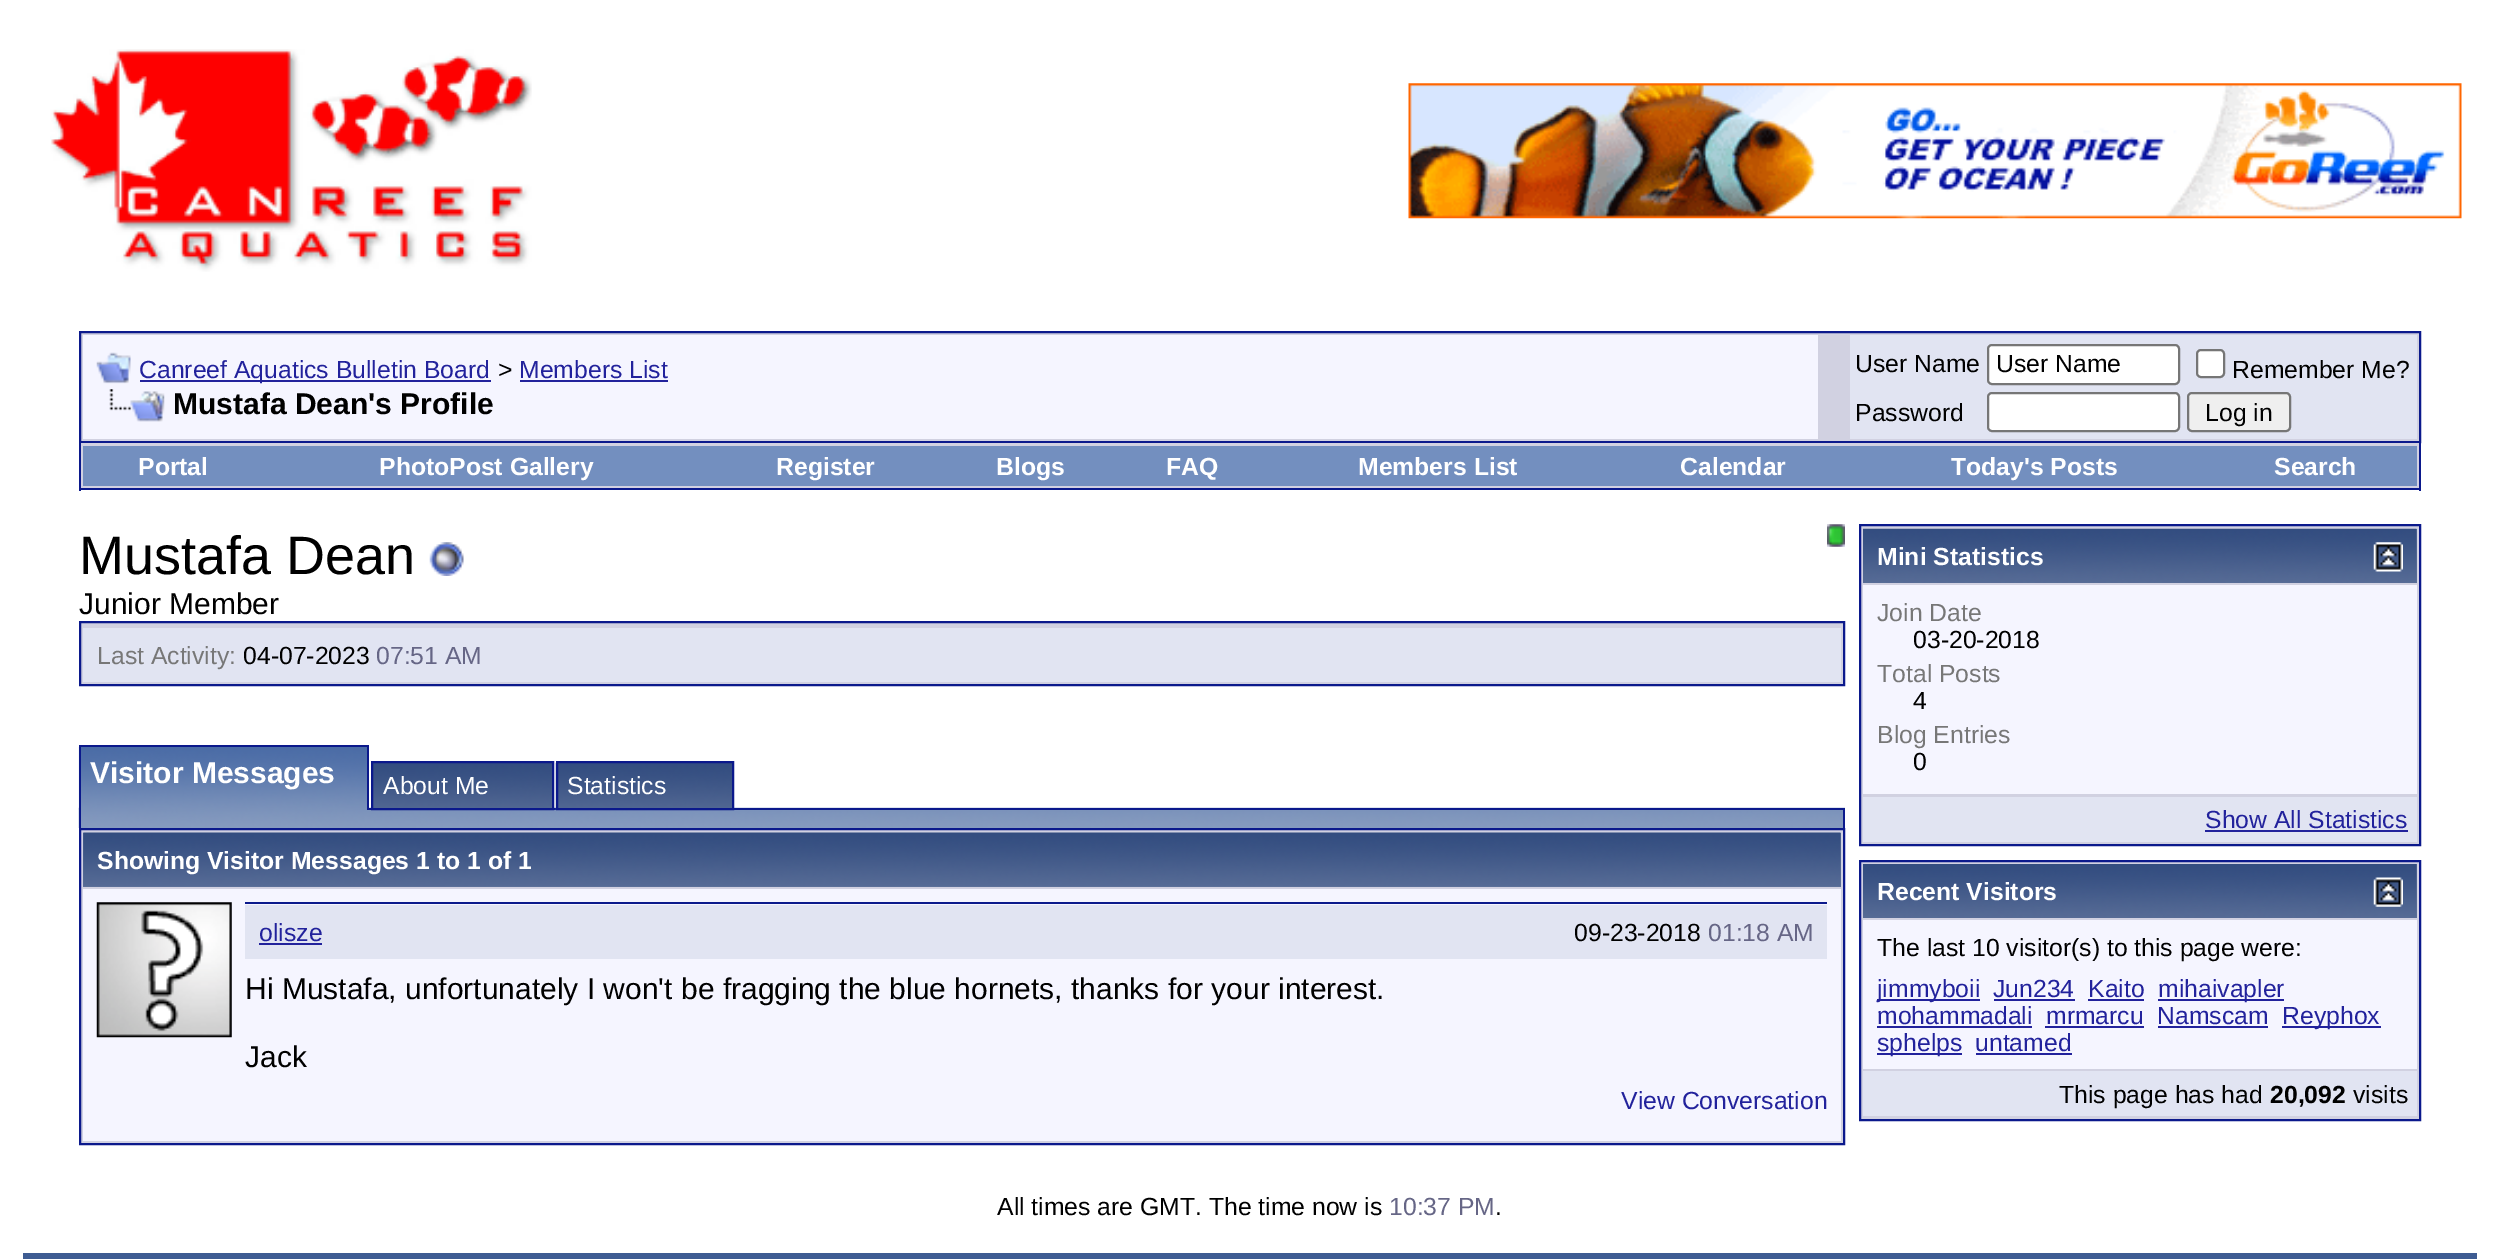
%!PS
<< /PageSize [2499 1259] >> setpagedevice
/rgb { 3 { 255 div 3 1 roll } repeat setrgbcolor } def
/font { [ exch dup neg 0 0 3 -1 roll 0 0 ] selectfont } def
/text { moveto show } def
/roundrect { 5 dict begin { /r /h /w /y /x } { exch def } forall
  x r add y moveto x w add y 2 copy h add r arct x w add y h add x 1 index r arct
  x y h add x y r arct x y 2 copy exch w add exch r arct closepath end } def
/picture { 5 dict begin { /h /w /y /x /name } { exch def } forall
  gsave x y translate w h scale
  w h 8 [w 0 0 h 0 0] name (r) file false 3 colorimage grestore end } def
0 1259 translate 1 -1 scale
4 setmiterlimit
255 255 255 rgb
0 0 2499 1259 rectfill
(img_01.rgb) 50 49 482 223 picture
(img_02.rgb) 1408 83 1054 136 picture
209 209 225 rgb
80 332 moveto 2340 0 rlineto 0 110 rlineto -2340 0 rlineto closepath gsave fill grestore
11 25 140 rgb
2 setlinewidth
stroke
245 245 255 rgb
83 335 1735 104 rectfill
(img_03.rgb) 96 352 35 32 picture
34 34 156 rgb
140 380 351 2 rectfill
520 380 148 2 rectfill
(img_04.rgb) 109 389 56 33 picture
225 228 242 rgb
1850 335 567 104 rectfill
255 255 255 rgb
1988 345 191 39 4 roundrect gsave fill grestore
118 118 118 rgb
stroke
255 255 255 rgb
2197 350 27 27 4 roundrect gsave fill grestore
118 118 118 rgb
stroke
255 255 255 rgb
1988 393 191 38 4 roundrect gsave fill grestore
118 118 118 rgb
stroke
239 239 239 rgb
2188 393 102 38 4 roundrect gsave fill grestore
118 118 118 rgb
stroke
209 209 225 rgb
81 443 2338 45 rectfill
11 25 140 rgb
2419 443 2 48 rectfill
79 488 2342 2 rectfill
79 443 2 48 rectfill
115 143 191 rgb
83 446 2334 40 rectfill
(img_05.rgb) 429 542 35 34 picture
(img_06.rgb) 1827 524 18 23 picture
209 209 225 rgb
80 622 moveto 1764 0 rlineto 0 63 rlineto -1764 0 rlineto closepath gsave fill grestore
11 25 140 rgb
stroke
225 228 242 rgb
83 628 1758 54 rectfill
(img_10.rgb) 78 807 1767 21 picture
11 25 140 rgb
79 808 2 20 rectfill
(img_07.rgb) 78 747 289 63 picture
79 745 290 2 rectfill
367 745 2 65 rectfill
79 745 2 65 rectfill
(img_08.rgb) 373 763 179 45 picture
369 808 1476 2 rectfill
372 762 181 47 rectstroke
(img_09.rgb) 555 762 177 48 picture
557 762 176 47 rectstroke
1843 808 2 20 rectfill
209 209 225 rgb
80 829 moveto 1764 0 rlineto 0 315 rlineto -1764 0 rlineto closepath gsave fill grestore
11 25 140 rgb
stroke
92 112 153 rgb
83 833 1758 54 rectfill
(img_11.rgb) 83 832 1758 54 picture
245 245 255 rgb
83 889 1758 252 rectfill
225 228 242 rgb
97 902 135 135 rectfill
(img_12.rgb) 96 902 136 136 picture
11 25 140 rgb
245 902 1582 2 rectfill
225 228 242 rgb
245 905 1582 54 rectfill
34 34 156 rgb
259 943 63 2 rectfill
209 209 225 rgb
1860 525 moveto 560 0 rlineto 0 320 rlineto -560 0 rlineto closepath gsave fill grestore
11 25 140 rgb
stroke
92 112 153 rgb
1863 529 554 54 rectfill
(img_13.rgb) 1863 528 554 55 picture
(img_14.rgb) 2373 542 30 30 picture
245 245 255 rgb
1863 585 554 209 rectfill
225 228 242 rgb
1863 797 554 45 rectfill
34 34 156 rgb
2205 830 203 2 rectfill
209 209 225 rgb
1860 861 moveto 560 0 rlineto 0 259 rlineto -560 0 rlineto closepath gsave fill grestore
11 25 140 rgb
stroke
92 112 153 rgb
2416 864 1 54 rectfill
(img_15.rgb) 1863 864 554 54 picture
(img_16.rgb) 2373 877 30 30 picture
245 245 255 rgb
1863 920 554 149 rectfill
34 34 156 rgb
1877 999 103 2 rectfill
1994 999 81 2 rectfill
2088 999 56 2 rectfill
2158 999 126 2 rectfill
1877 1026 155 2 rectfill
2045 1026 99 2 rectfill
2158 1026 110 2 rectfill
2282 1026 99 2 rectfill
1877 1053 85 2 rectfill
1976 1053 96 2 rectfill
225 228 242 rgb
1863 1071 554 45 rectfill
62 92 146 rgb
23 1253 2454 6 rectfill
/LiberationSans-Regular 24.75 font
34 34 156 rgb
(Canreef Aquatics Bulletin Board) 139 378 text
0 0 0 rgb
(>) 498 378 text
34 34 156 rgb
(Members List) 519 378 text
/LiberationSans-Bold 30 font
0 0 0 rgb
(Mustafa Dean's Profile) 173 414 text
/LiberationSans-Regular 24.75 font
(User Name) 1855 372 text
(User Name) 1996 372 text
(Remember Me?) 2232 378 text
(Password) 1855 421 text
(Log in) 2205 421 text
/LiberationSans-Bold 24.75 font
255 255 255 rgb
(Portal) 138 475 text
(PhotoPost Gallery) 379 475 text
(Register) 776 475 text
(Blogs) 996 475 text
(FAQ) 1166 475 text
(Members List) 1358 475 text
(Calendar) 1680 475 text
(Today's Posts) 1951 475 text
(Search) 2274 475 text
/LiberationSans-Regular 54 font
0 0 0 rgb
(Mustafa Dean) 79 574 text
/LiberationSans-Regular 30 font
(Junior Member) 79 614 text
/LiberationSans-Regular 24.75 font
119 119 119 rgb
(Last Activity:) 97 664 text
0 0 0 rgb
(04-07-2023) 243 664 text
102 102 134 rgb
(07:51 AM) 376 664 text
/LiberationSans-Bold 30 font
255 255 255 rgb
(Visitor Messages) 90 783 text
/LiberationSans-Regular 24.75 font
(About Me) 383 794 text
(Statistics) 567 794 text
/LiberationSans-Bold 24.75 font
(Showing Visitor Messages 1 to 1 of 1) 97 869 text
/LiberationSans-Regular 24.75 font
34 34 156 rgb
(olisze) 259 941 text
0 0 0 rgb
(09-23-2018) 1574 941 text
102 102 134 rgb
(01:18 AM) 1708 941 text
/LiberationSans-Regular 30 font
0 0 0 rgb
(Hi Mustafa, unfortunately I won't be fragging the blue hornets, thanks for your interest.) 245 999 text
(Jack) 245 1067 text
/LiberationSans-Regular 24.75 font
34 34 156 rgb
(View Conversation) 1621 1109 text
/LiberationSans-Bold 24.75 font
255 255 255 rgb
(Mini Statistics) 1877 565 text
/LiberationSans-Regular 24.75 font
119 119 119 rgb
(Join Date) 1877 621 text
0 0 0 rgb
(03-20-2018) 1913 648 text
119 119 119 rgb
(Total Posts) 1877 682 text
0 0 0 rgb
(4) 1913 709 text
119 119 119 rgb
(Blog Entries) 1877 743 text
0 0 0 rgb
(0) 1913 770 text
34 34 156 rgb
(Show All Statistics) 2205 828 text
/LiberationSans-Bold 24.75 font
255 255 255 rgb
(Recent Visitors) 1877 900 text
/LiberationSans-Regular 24.75 font
0 0 0 rgb
(The last 10 visitor\(s\) to this page were:) 1877 956 text
34 34 156 rgb
(jimmyboii) 1877 997 text
(Jun234) 1993 997 text
(Kaito) 2088 997 text
(mihaivapler) 2158 997 text
(mohammadali) 1877 1024 text
(mrmarcu) 2046 1024 text
(Namscam) 2157 1024 text
(Reyphox) 2282 1024 text
(sphelps) 1877 1051 text
(untamed) 1975 1051 text
0 0 0 rgb
(This page has had) 2059 1103 text
/LiberationSans-Bold 24.75 font
(20,092) 2270 1103 text
/LiberationSans-Regular 24.75 font
(visits) 2353 1103 text
(All times are GMT. The time now is) 997 1215 text
102 102 134 rgb
(10:37 PM) 1389 1215 text
0 0 0 rgb
(.) 1495 1215 text
showpage
